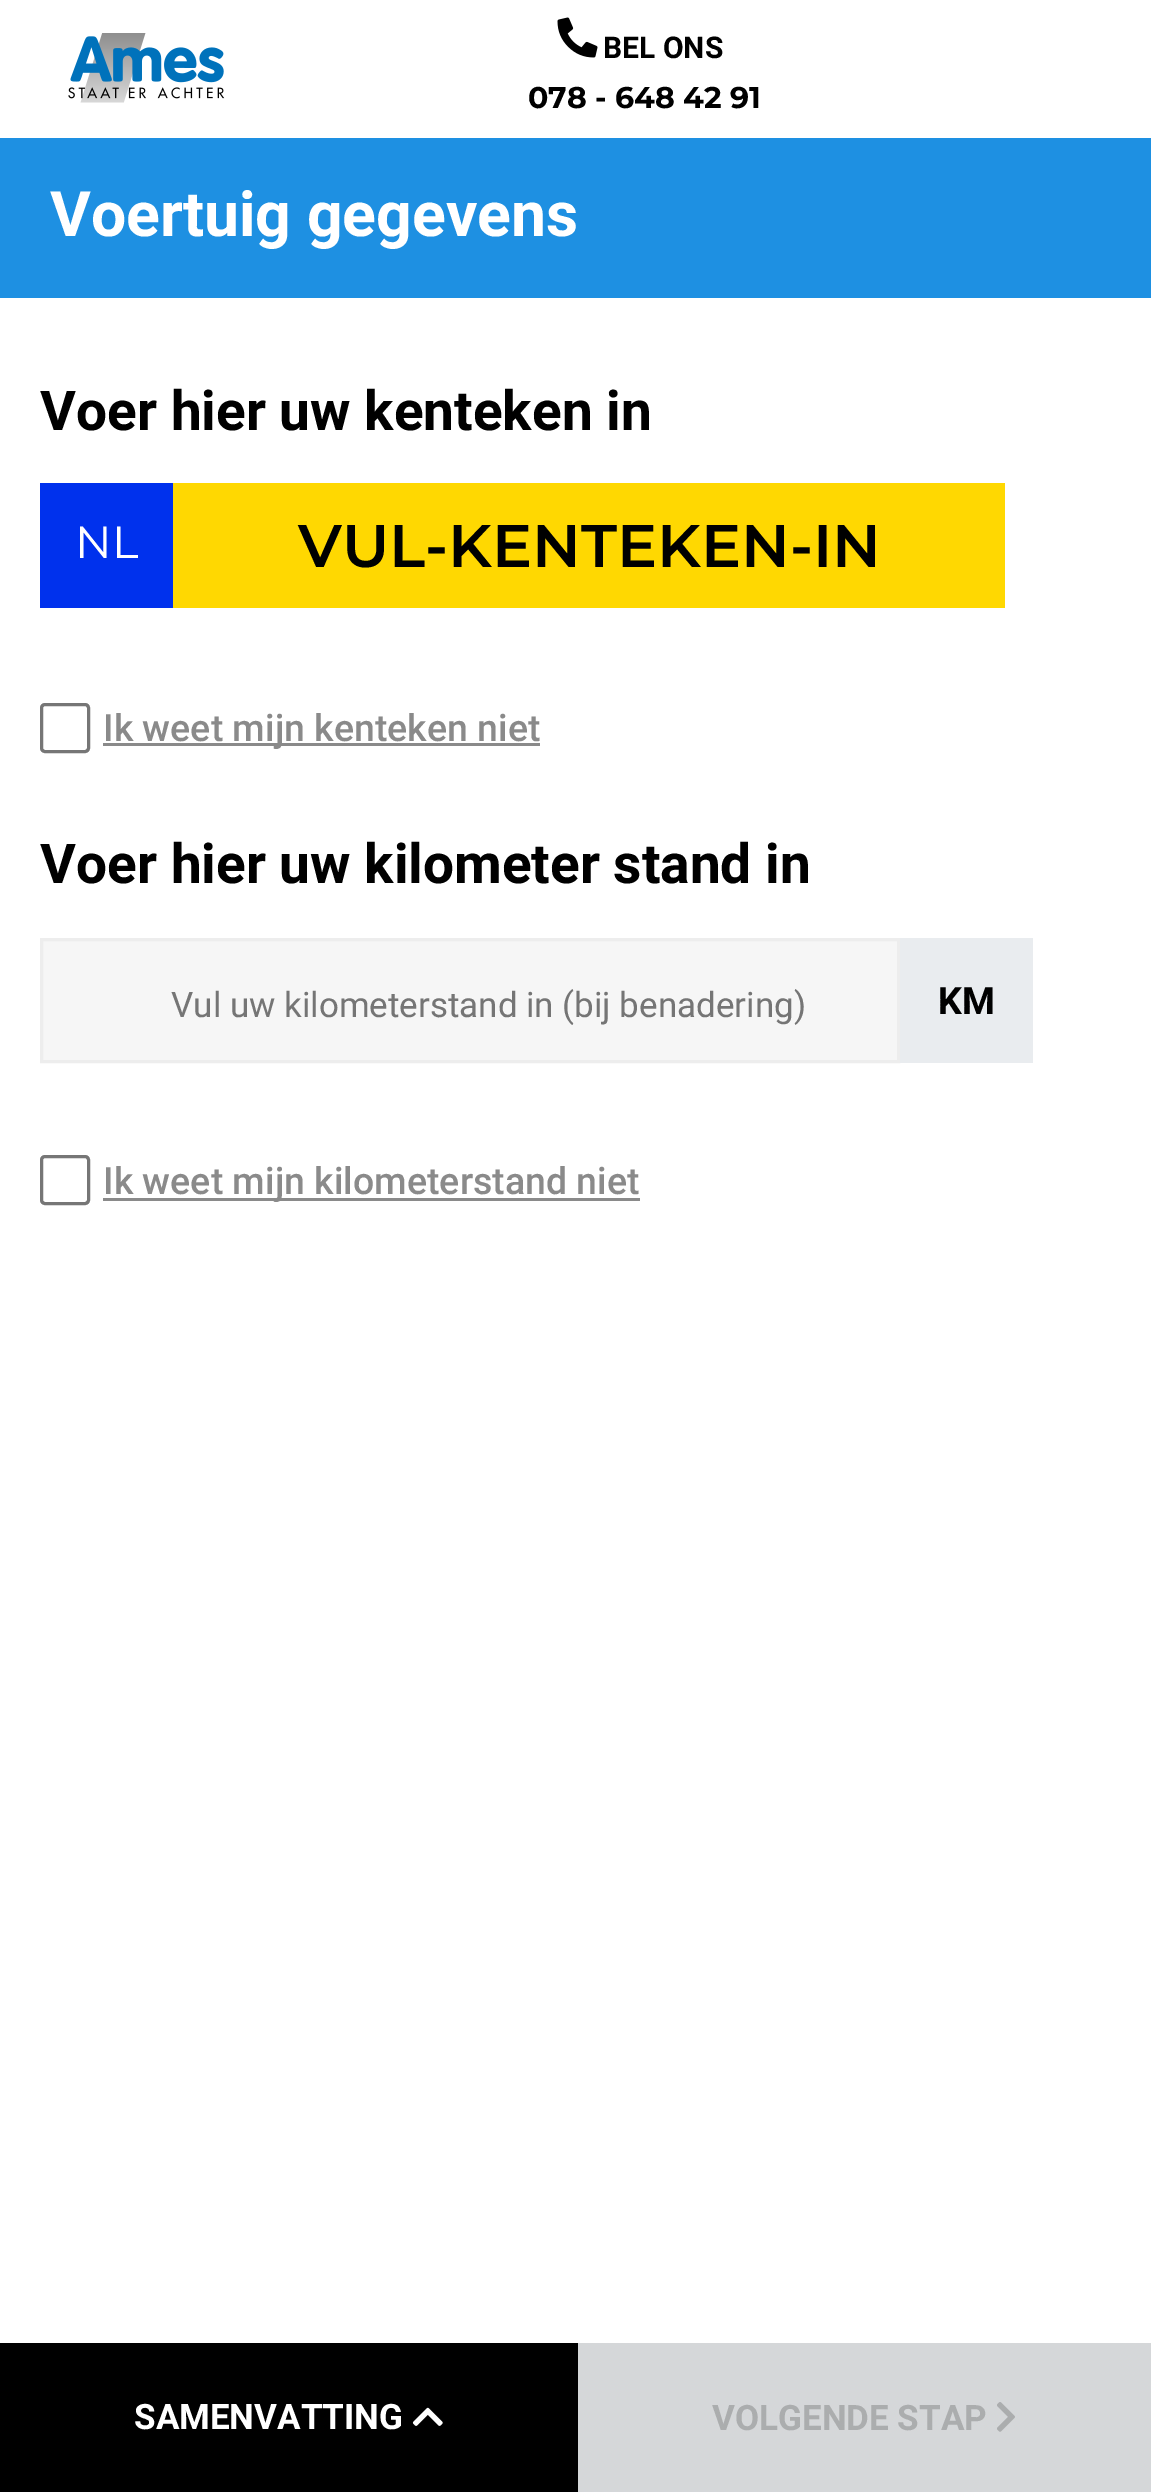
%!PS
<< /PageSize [1151 2492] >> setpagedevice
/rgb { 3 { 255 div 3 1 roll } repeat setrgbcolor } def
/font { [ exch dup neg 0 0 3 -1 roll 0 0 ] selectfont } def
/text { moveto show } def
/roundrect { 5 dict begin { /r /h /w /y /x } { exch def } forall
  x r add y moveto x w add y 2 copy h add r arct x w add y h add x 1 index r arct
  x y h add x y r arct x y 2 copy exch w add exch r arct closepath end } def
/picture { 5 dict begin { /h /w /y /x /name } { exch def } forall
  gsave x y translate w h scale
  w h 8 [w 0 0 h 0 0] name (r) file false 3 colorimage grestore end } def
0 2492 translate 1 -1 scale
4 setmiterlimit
255 255 255 rgb
0 0 1151 2492 rectfill
(img_01.rgb) 68 33 157 70 picture
(img_02.rgb) 557 17 41 41 picture
30 144 226 rgb
0 138 1151 160 rectfill
0 49 237 rgb
40 483 133 125 rectfill
255 216 1 rgb
173 483 832 125 rectfill
118 118 118 rgb
3 setlinewidth
41.5 704.5 47 47 3.5 roundrect stroke
138 138 138 rgb
103 743 437 3 rectfill
246 246 246 rgb
41.5 939.5 moveto 857 0 rlineto 0 122 rlineto -857 0 rlineto closepath gsave fill grestore
237 237 237 rgb
stroke
233 236 239 rgb
900 938 133 125 rectfill
118 118 118 rgb
41.5 1156.5 47 47 3.5 roundrect stroke
138 138 138 rgb
103 1198 537 3 rectfill
0 0 0 rgb
0 2343 578 149 rectfill
(img_03.rgb) 412 2407 31 19 picture
213 215 217 rgb
578 2343 573 149 rectfill
(img_04.rgb) 997 2402 18 30 picture
/Roboto-Bold 30 font
0 0 0 rgb
(BEL ONS) 603 58 text
/Montserrat-Bold 30 font
(078 - 648 42 91) 528 108 text
/Roboto-Bold 62.5 font
255 255 255 rgb
(Voertuig gegevens) 50 236 text
/Roboto-Bold 55 font
0 0 0 rgb
(Voer hier uw kenteken in) 40 430 text
/Montserrat-Regular 45 font
255 255 255 rgb
(NL) 75 558 text
/Montserrat-SemiBold 60 font
0 0 0 rgb
(VUL-KENTEKEN-IN) 298 567 text
/Roboto-Medium 37.5 font
138 138 138 rgb
(Ik weet mijn kenteken niet) 103 741 text
/Roboto-Bold 55 font
0 0 0 rgb
(Voer hier uw kilometer stand in) 40 883 text
/Roboto-Regular 35 font
117 117 117 rgb
(Vul uw kilometerstand in \(bij benadering\)) 171 1017 text
/Roboto-Bold 37.5 font
0 0 0 rgb
(KM) 938 1014 text
/Roboto-Medium 37.5 font
138 138 138 rgb
(Ik weet mijn kilometerstand niet) 103 1194 text
/Roboto-Bold 35 font
255 255 255 rgb
(SAMENVATTING) 134 2429 text
171 173 174 rgb
(VOLGENDE STAP) 712 2430 text
showpage
